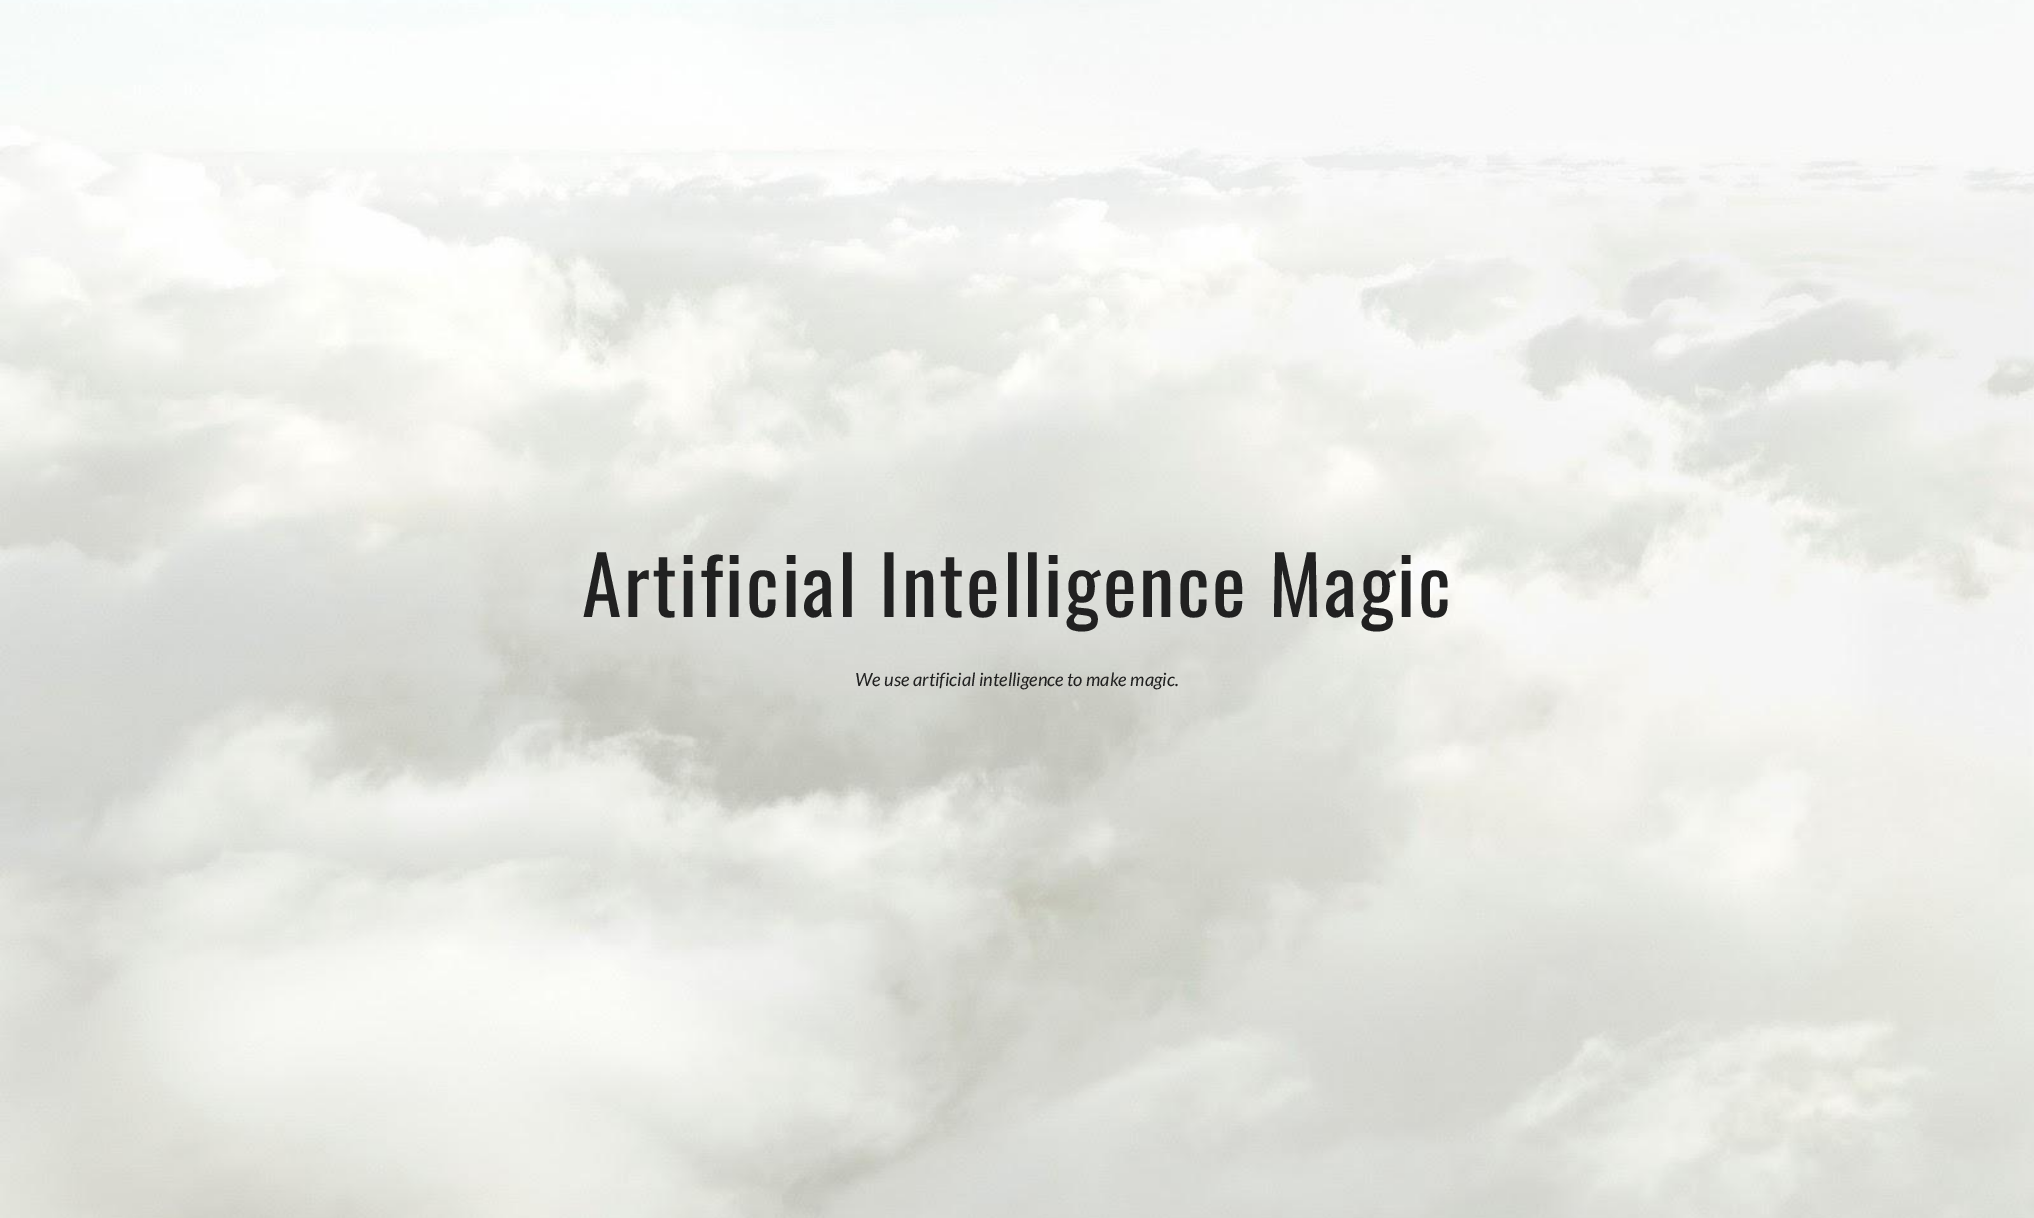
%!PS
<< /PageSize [2034 1218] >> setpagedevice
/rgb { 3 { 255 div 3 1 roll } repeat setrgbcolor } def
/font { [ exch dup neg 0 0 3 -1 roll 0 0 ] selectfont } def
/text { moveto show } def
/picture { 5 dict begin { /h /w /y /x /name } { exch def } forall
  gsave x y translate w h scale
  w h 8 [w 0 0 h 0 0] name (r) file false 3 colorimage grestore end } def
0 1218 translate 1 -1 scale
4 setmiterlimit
255 255 255 rgb
0 0 2034 1218 rectfill
(img_01.rgb) 0 0 2034 1218 picture
/Oswald-Regular 80 font
33 33 33 rgb
582 617 moveto 2.5 0 (Artificial Intelligence Magic) ashow
/Lato-Italic 18.3 font
(We use artificial intelligence to make magic.) 855 686 text
showpage
